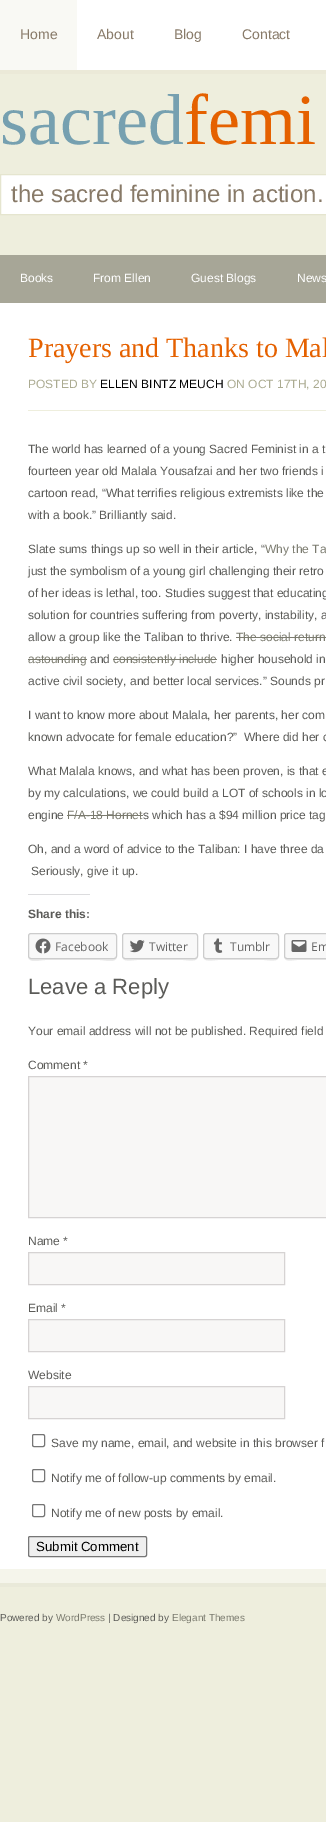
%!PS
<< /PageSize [326 1822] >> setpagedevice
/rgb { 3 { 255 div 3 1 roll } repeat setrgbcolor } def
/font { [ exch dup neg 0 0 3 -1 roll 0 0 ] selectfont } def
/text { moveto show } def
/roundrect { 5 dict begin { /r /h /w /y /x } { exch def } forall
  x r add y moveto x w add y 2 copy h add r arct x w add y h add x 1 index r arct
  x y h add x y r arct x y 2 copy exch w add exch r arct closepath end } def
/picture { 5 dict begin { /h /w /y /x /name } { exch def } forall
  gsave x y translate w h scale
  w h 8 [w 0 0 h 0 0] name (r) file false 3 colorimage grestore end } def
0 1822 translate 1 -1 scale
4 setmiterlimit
238 238 221 rgb
0 0 326 1822 rectfill
235 233 216 rgb
0 70 326 4 rectfill
255 255 255 rgb
77 0 249 70 rectfill
249 249 244 rgb
0 0 77 70 rectfill
255 255 255 rgb
0.5 174.5 moveto 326 0 rlineto 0 40 rlineto -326 0 rlineto closepath gsave fill grestore
229 229 207 rgb
stroke
167 166 151 rgb
0 255 326 48 rectfill
255 255 255 rgb
0 303 326 1266 rectfill
238 238 221 rgb
28 410 298 1 rectfill
123 123 111 rgb
236 637 90 1 rectfill
28 659 59 1 rectfill
113 659 104 1 rectfill
67 815 76 1 rectfill
220 220 222 rgb
28 894 62 1 rectfill
235 235 235 rgb
28 956 moveto 0 8 13 4 17 4 rcurveto 55 0 rlineto 4 0 17 4 17 -4 rcurveto 0 2 -1 3 -3 3 rcurveto -83 0 rlineto -2 0 -3 -1 -3 -3 rcurveto closepath fill
248 248 248 rgb
28.5 933.5 88 25 2.5 roundrect gsave fill grestore
204 204 204 rgb
stroke
(img_01.rgb) 35 938 16 16 picture
235 235 235 rgb
122 956 moveto 0 7 11 4 15 4 rcurveto 46 0 rlineto 4 0 15 3 15 -4 rcurveto 0 2 -1 3 -3 3 rcurveto -70 0 rlineto -2 0 -3 -1 -3 -3 rcurveto closepath fill
248 248 248 rgb
122.5 933.5 75 25 2.5 roundrect gsave fill grestore
204 204 204 rgb
stroke
(img_02.rgb) 129 940 16 13 picture
235 235 235 rgb
203 956 moveto 0 7 11 4 15 4 rcurveto 46 0 rlineto 4 0 15 3 15 -4 rcurveto 0 2 -1 3 -3 3 rcurveto -70 0 rlineto -2 0 -3 -1 -3 -3 rcurveto closepath fill
248 248 248 rgb
203.5 933.5 75 25 2.5 roundrect gsave fill grestore
204 204 204 rgb
stroke
(img_03.rgb) 213 938 10 15 picture
235 235 235 rgb
284 956 moveto 0 7 9 4 13 4 rcurveto 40 0 rlineto 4 0 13 3 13 -4 rcurveto 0 2 -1 3 -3 3 rcurveto -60 0 rlineto -2 0 -3 -1 -3 -3 rcurveto closepath fill
248 248 248 rgb
284.5 933.5 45 25 2.5 roundrect gsave fill grestore
204 204 204 rgb
stroke
(img_04.rgb) 291 940 16 12 picture
248 247 246 rgb
28.5 1076.5 moveto 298 0 rlineto 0 141 rlineto -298 0 rlineto closepath gsave fill grestore
214 211 211 rgb
stroke
248 247 246 rgb
28.5 1252.5 moveto 256 0 rlineto 0 32 rlineto -256 0 rlineto closepath gsave fill grestore
214 211 211 rgb
stroke
248 247 246 rgb
28.5 1319.5 moveto 256 0 rlineto 0 32 rlineto -256 0 rlineto closepath gsave fill grestore
214 211 211 rgb
stroke
248 247 246 rgb
28.5 1386.5 moveto 256 0 rlineto 0 32 rlineto -256 0 rlineto closepath gsave fill grestore
214 211 211 rgb
stroke
118 118 118 rgb
32.5 1434.5 12 12 1.5 roundrect stroke
32.5 1469.5 12 12 1.5 roundrect stroke
32.5 1504.5 12 12 1.5 roundrect stroke
239 239 239 rgb
28.5 1536.5 118 20 1.5 roundrect gsave fill grestore
118 118 118 rgb
stroke
245 245 235 rgb
0 1569 326 14 rectfill
233 233 217 rgb
0 1583 326 4 rectfill
/LiberationSans-Regular 14 font
136 122 104 rgb
(Home) 20 39 text
(About) 97 39 text
(Blog) 174 39 text
(Contact) 242 39 text
/LiberationSerif-Regular 72 font
118 160 176 rgb
(sacred) 0 144 text
229 97 0 rgb
(femi) 184 144 text
/LiberationSans-Regular 24 font
136 122 104 rgb
(the sacred feminine in action.) 11 202 text
/LiberationSans-Regular 12 font
255 255 255 rgb
(Books) 20 282 text
(From Ellen) 93 282 text
(Guest Blogs) 191 282 text
(News) 297 282 text
/LiberationSerif-Regular 28 font
229 97 0 rgb
(Prayers and Thanks to Mal) 28 357 text
/LiberationSans-Regular 12 font
171 171 145 rgb
(POSTED BY) 28 388 text
0 0 0 rgb
(ELLEN BINTZ MEUCH) 100 388 text
171 171 145 rgb
(ON OCT 17TH, 20) 227 388 text
91 91 88 rgb
(The world has learned of a young Sacred Feminist in a t) 28 453 text
(fourteen year old Malala Yousafzai and her two friends i) 28 475 text
(cartoon read, “What terrifies religious extremists like the) 28 497 text
(with a book.” Brilliantly said.) 28 519 text
(Slate sums things up so well in their article, “) 28 553 text
123 123 111 rgb
(Why the Ta) 265 553 text
91 91 88 rgb
(just the symbolism of a young girl challenging their retro) 28 575 text
(of her ideas is lethal, too. Studies suggest that educating) 28 597 text
(solution for countries suffering from poverty, instability, a) 28 619 text
(allow a group like the Taliban to thrive.) 28 641 text
123 123 111 rgb
(The social return) 236 641 text
(astounding) 28 663 text
91 91 88 rgb
(and) 90 663 text
123 123 111 rgb
(consistently include) 113 663 text
91 91 88 rgb
(higher household in) 221 663 text
(active civil society, and better local services.” Sounds pr) 28 685 text
(I want to know more about Malala, her parents, her com) 28 719 text
(known advocate for female education?”  Where did her c) 28 741 text
(What Malala knows, and what has been proven, is that e) 28 775 text
(by my calculations, we could build a LOT of schools in lo) 28 797 text
(engine) 28 819 text
123 123 111 rgb
(F/A-18 Hornet) 67 819 text
91 91 88 rgb
(s which has a $94 million price tag) 143 819 text
(Oh, and a word of advice to the Taliban: I have three da) 28 853 text
(Seriously, give it up.) 31 875 text
/LiberationSans-Bold 12 font
(Share this:) 28 918 text
/OpenSans-Regular 12 font
101 101 101 rgb
(Facebook) 55 951 text
(Twitter) 149 951 text
(Tumblr) 230 951 text
(Em) 311 951 text
/LiberationSans-Regular 22 font
91 91 88 rgb
(Leave a Reply) 28 994 text
/LiberationSans-Regular 12 font
(Your email address will not be published. Required field) 28 1035 text
(Comment *) 28 1069 text
(Name *) 28 1245 text
(Email *) 28 1312 text
(Website) 28 1379 text
(Save my name, email, and website in this browser f) 51 1447 text
(Notify me of follow-up comments by email.) 51 1482 text
(Notify me of new posts by email.) 51 1517 text
/LiberationSans-Regular 13.25 font
0 0 0 rgb
(Submit Comment) 36 1551 text
/LiberationSans-Regular 10 font
91 91 88 rgb
(Powered by) 0 1621 text
123 123 111 rgb
(WordPress) 56 1621 text
91 91 88 rgb
(| Designed by) 108 1621 text
123 123 111 rgb
(Elegant Themes) 172 1621 text
showpage
